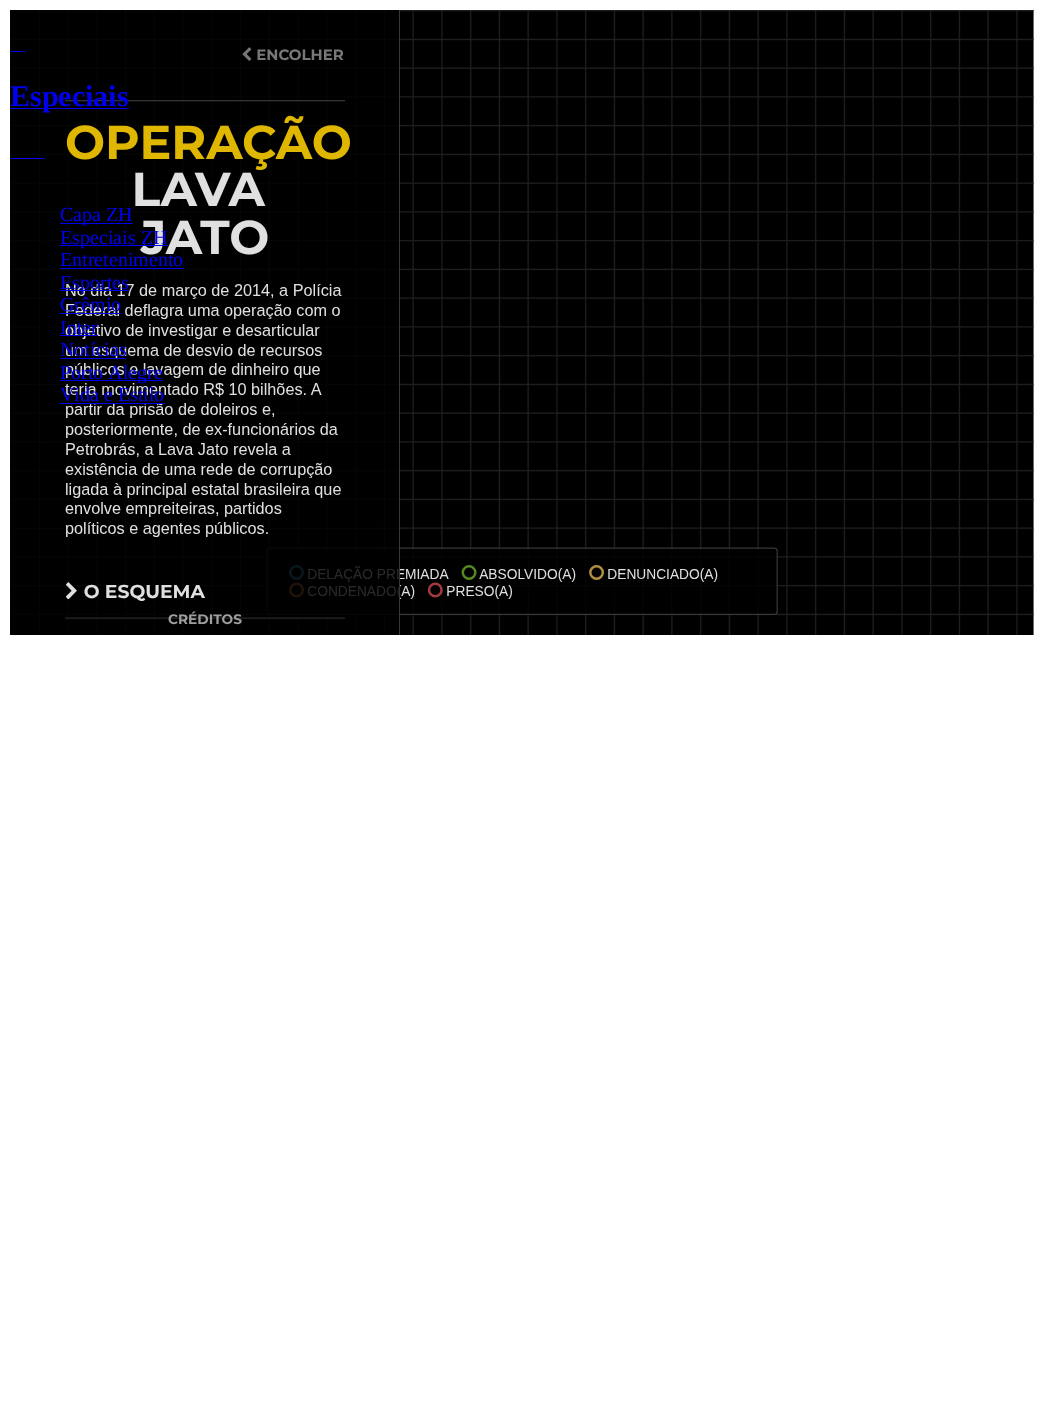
%!PS
<< /PageSize [1043 1408] >> setpagedevice
/rgb { 3 { 255 div 3 1 roll } repeat setrgbcolor } def
/font { [ exch dup neg 0 0 3 -1 roll 0 0 ] selectfont } def
/text { moveto show } def
/circle { newpath 0 360 arc closepath } def
/picture { 5 dict begin { /h /w /y /x /name } { exch def } forall
  gsave x y translate w h scale
  w h 8 [w 0 0 h 0 0] name (r) file false 3 colorimage grestore end } def
0 1408 translate 1 -1 scale
4 setmiterlimit
255 255 255 rgb
0 0 1043 1408 rectfill
(img_01.rgb) 10 10 1024 625 picture
0 0 238 rgb
10 51 15 1 rectfill
10 108 119 1 rectfill
10 158 35 1 rectfill
60 223 73 1 rectfill
0 0 0 rgb
43 238 3 circle fill
0 0 238 rgb
60 245 108 1 rectfill
60 268 124 1 rectfill
60 290 69 1 rectfill
60 313 61 1 rectfill
0 0 0 rgb
43 328 3 circle fill
0 0 238 rgb
60 335 38 1 rectfill
60 358 66 1 rectfill
60 380 103 1 rectfill
60 403 105 1 rectfill
/LiberationSerif-Bold 30 font
(Especiais) 10 106 text
/LiberationSerif-Regular 20 font
(Capa ZH) 60 221 text
(Especiais ZH) 60 244 text
(Entretenimento) 60 266 text
(Esportes) 60 289 text
(Grêmio) 60 311 text
(Inter) 60 334 text
(Notícias) 60 356 text
(Porto Alegre) 60 379 text
(Vida e Estilo) 60 401 text
showpage
